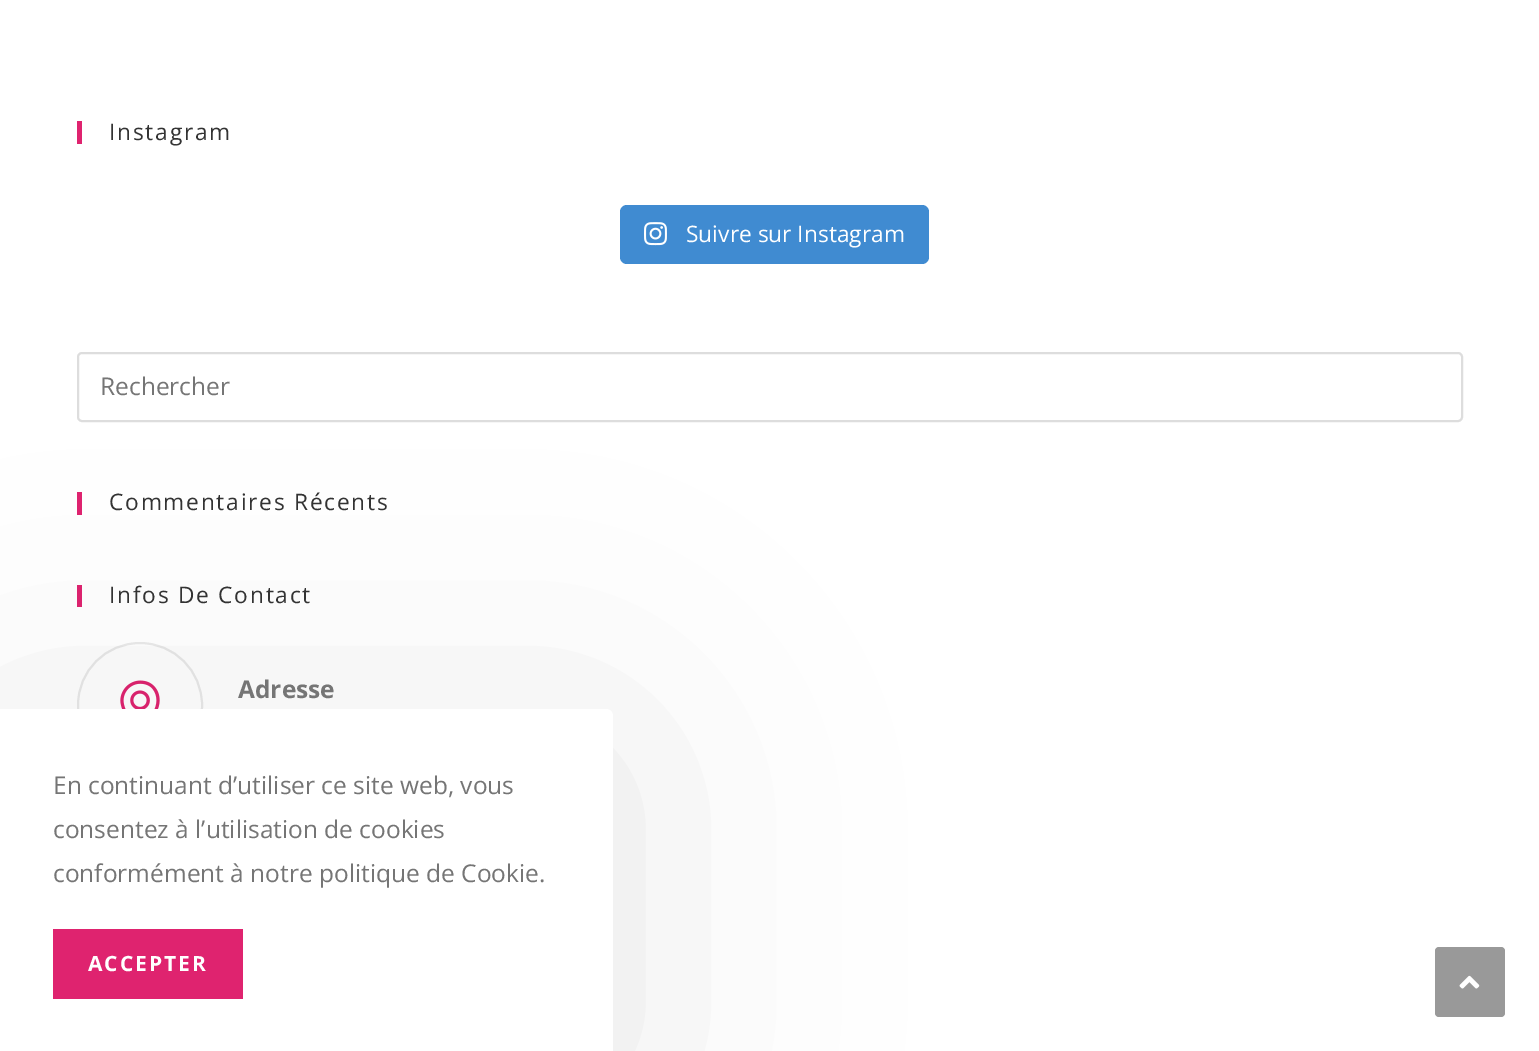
%!PS
<< /PageSize [1539 1051] /PageUsesTransparency true >> setpagedevice
/rgb { 3 { 255 div 3 1 roll } repeat setrgbcolor } def
/font { [ exch dup neg 0 0 3 -1 roll 0 0 ] selectfont } def
/text { moveto show } def
/alpha { dup .setfillconstantalpha .setstrokeconstantalpha } def
/circle { newpath 0 360 arc closepath } def
/roundrect { 5 dict begin { /r /h /w /y /x } { exch def } forall
  x r add y moveto x w add y 2 copy h add r arct x w add y h add x 1 index r arct
  x y h add x y r arct x y 2 copy exch w add exch r arct closepath end } def
/shadow { 12 dict begin { /a /b /q /h /w /y /x } { exch def } forall gsave /was 0 def
  9 -2 -9 { dup b mul 4 div /e exch def 1 sub .425 mul 2.718 exch exp 1 add a .99 .min exch div /now exch def
    1 1 now sub 1 was sub div sub alpha /was now def
    w h .min e 2 mul add 0 gt { x e sub y e sub w e 2 mul add h e 2 mul add
      q e add b .6 mul add w h .min 2 div e add .min 0 .max roundrect fill } if } for grestore end } def
/picture { 5 dict begin { /h /w /y /x /name } { exch def } forall
  gsave x y translate w h scale
  w h 8 [w 0 0 h 0 0] name (r) file false 3 colorimage grestore end } def
0 .pushpdf14devicefilter
0 1051 translate 1 -1 scale
4 setmiterlimit
255 255 255 rgb
0 0 1539 1051 rectfill
223 35 111 rgb
77 121 5 23 rectfill
64 139 209 rgb
620 205 309 59 7 roundrect fill
(img_01.rgb) 644 222 23 24 picture
221 221 221 rgb
2 setlinewidth
78 353 1384 68 4 roundrect stroke
223 35 111 rgb
77 492 5 23 rectfill
77 585 5 22 rectfill
233 233 233 rgb
140 705 62 circle stroke
(img_02.rgb) 120 680 40 29 picture
0 0 0 rgb
0 744 613 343 7 131 0.1 shadow
255 255 255 rgb
0 709 moveto 606 0 rlineto 4 0 7 3 7 7 rcurveto 0 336 rlineto -613 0 rlineto closepath fill
223 35 111 rgb
53 929 190 70 rectfill
153 153 153 rgb
1435 947 70 70 4 roundrect fill
(img_03.rgb) 1459 975 21 14 picture
/OpenSans-Regular 22.75 font
51 51 51 rgb
109 140 moveto 1.75 0 (Instagram) ashow
255 255 255 rgb
(Suivre sur Instagram) 686 242 text
/OpenSans-Regular 24.5 font
117 117 117 rgb
(Rechercher) 100 395 text
/OpenSans-Regular 22.75 font
51 51 51 rgb
109 510 moveto 1.75 0 (Commentaires Récents) ashow
109 603 moveto 1.75 0 (Infos De Contact) ashow
/OpenSans-Bold 24.5 font
117 117 117 rgb
(Adresse) 238 698 text
/OpenSans-Regular 24.5 font
(En continuant d’utiliser ce site web, vous) 53 794 text
(consentez à l’utilisation de cookies) 53 838 text
(conformément à notre politique de Cookie.) 53 882 text
/OpenSans-Bold 21 font
255 255 255 rgb
88 971 moveto 2 0 (ACCEPTER) ashow
.poppdf14devicefilter showpage
